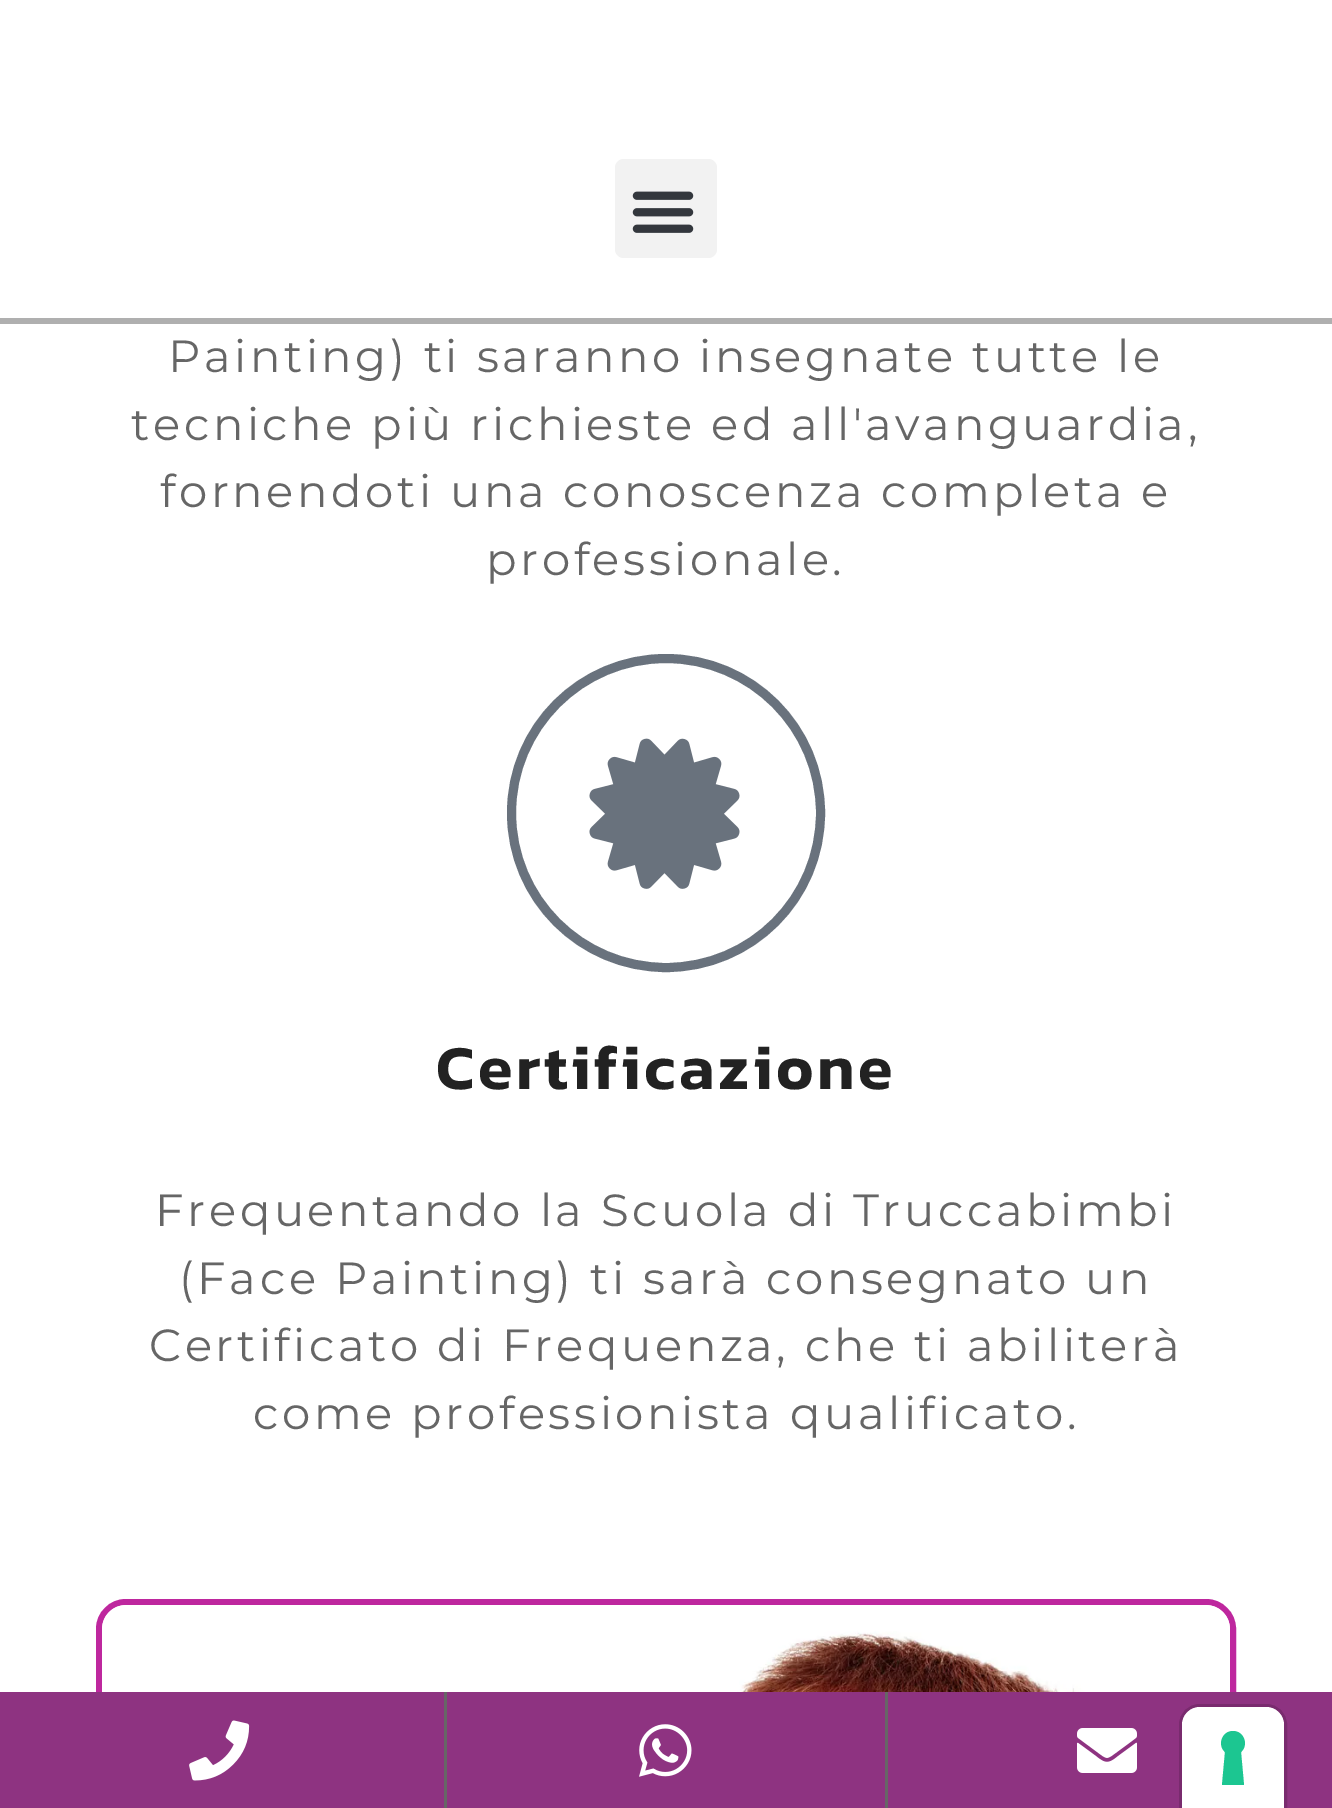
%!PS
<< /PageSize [1332 1808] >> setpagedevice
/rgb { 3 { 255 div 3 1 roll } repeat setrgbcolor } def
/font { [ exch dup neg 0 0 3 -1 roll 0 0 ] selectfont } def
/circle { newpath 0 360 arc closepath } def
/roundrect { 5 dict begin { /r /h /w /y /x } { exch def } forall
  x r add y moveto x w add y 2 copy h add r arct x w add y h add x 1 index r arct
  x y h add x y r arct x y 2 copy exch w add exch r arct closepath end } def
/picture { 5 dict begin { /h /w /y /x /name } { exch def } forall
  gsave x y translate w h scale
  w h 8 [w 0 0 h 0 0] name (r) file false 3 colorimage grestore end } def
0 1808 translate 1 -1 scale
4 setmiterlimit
255 255 255 rgb
0 0 1332 1808 rectfill
175 175 175 rgb
0 318 1332 6 rectfill
242 242 242 rgb
615 159 102 99 9 roundrect fill
(img_01.rgb) 632 191 62 42 picture
105 114 125 rgb
9 setlinewidth
666 813 154.5 circle stroke
(img_02.rgb) 589 738 151 151 picture
190 39 158 rgb
6 setlinewidth
99 1602 1134 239 27 roundrect stroke
(img_03.rgb) 102 1605 1128 87 picture
142 51 129 rgb
0 1692 1332 116 rectfill
(img_04.rgb) 189 1720 61 61 picture
102 102 102 rgb
885 1692 3 116 rectfill
444 1692 3 116 rectfill
(img_05.rgb) 639 1724 53 53 picture
(img_06.rgb) 1077 1728 60 45 picture
121 43 110 rgb
3 setlinewidth
1200 1705.5 moveto 66 0 rlineto 11 0 19.5 8.5 19.5 19.5 rcurveto 0 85.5 rlineto -105 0 rlineto 0 -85.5 rlineto 0 -11 8.5 -19.5 19.5 -19.5 rcurveto closepath stroke
255 255 255 rgb
1200 1707 moveto 66 0 rlineto 10 0 18 8 18 18 rcurveto 0 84 rlineto -102 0 rlineto 0 -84 rlineto 0 -10 8 -18 18 -18 rcurveto closepath fill
28 198 145 rgb
1233 1731 moveto 11 0 16 14 8 21 rcurveto 3 33 rlineto -22 0 rlineto 3 -33 rlineto -8 -7 -3 -21 8 -21 rcurveto closepath eofill
/Montserrat-Regular 45 font
102 102 102 rgb
168 372 moveto 3.6 0 (Painting\) ti saranno insegnate tutte le) ashow
131 440 moveto 3.6 0 (tecniche più richieste ed all'avanguardia,) ashow
160 507 moveto 3.6 0 (fornendoti una conoscenza completa e) ashow
486 575 moveto 3.6 0 (professionale.) ashow
/Kanit-SemiBold 63 font
34 34 34 rgb
436 1089 moveto 3.6 0 (Certificazione) ashow
/Montserrat-Regular 45 font
102 102 102 rgb
155 1226 moveto 3.6 0 (Frequentando la Scuola di Truccabimbi) ashow
179 1294 moveto 3.6 0 (\(Face Painting\) ti sarà consegnato un) ashow
149 1361 moveto 3.6 0 (Certificato di Frequenza, che ti abiliterà) ashow
253 1429 moveto 3.6 0 (come professionista qualificato.) ashow
showpage
